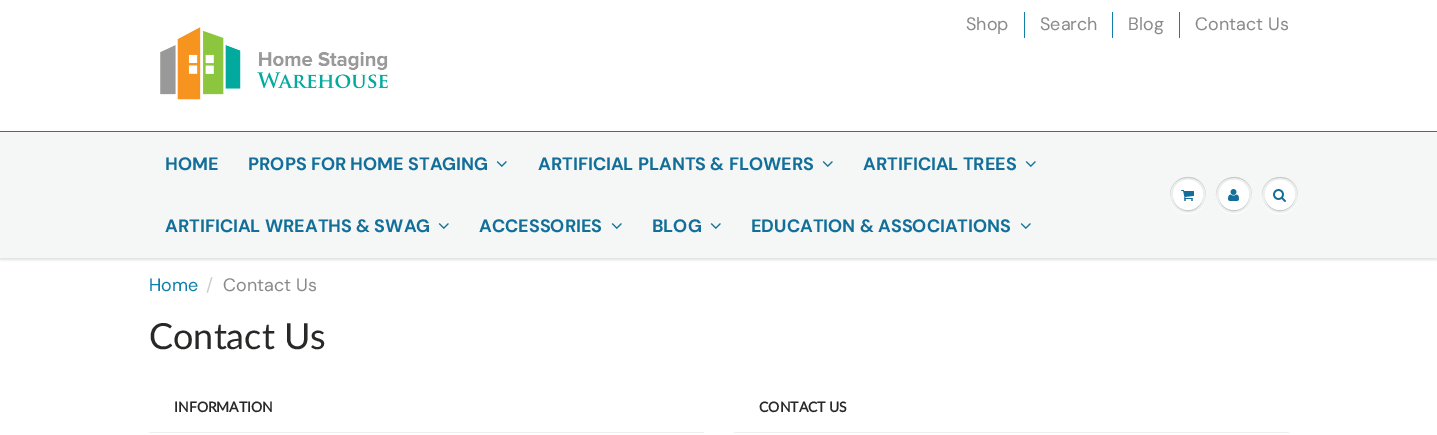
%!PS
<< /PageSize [1437 435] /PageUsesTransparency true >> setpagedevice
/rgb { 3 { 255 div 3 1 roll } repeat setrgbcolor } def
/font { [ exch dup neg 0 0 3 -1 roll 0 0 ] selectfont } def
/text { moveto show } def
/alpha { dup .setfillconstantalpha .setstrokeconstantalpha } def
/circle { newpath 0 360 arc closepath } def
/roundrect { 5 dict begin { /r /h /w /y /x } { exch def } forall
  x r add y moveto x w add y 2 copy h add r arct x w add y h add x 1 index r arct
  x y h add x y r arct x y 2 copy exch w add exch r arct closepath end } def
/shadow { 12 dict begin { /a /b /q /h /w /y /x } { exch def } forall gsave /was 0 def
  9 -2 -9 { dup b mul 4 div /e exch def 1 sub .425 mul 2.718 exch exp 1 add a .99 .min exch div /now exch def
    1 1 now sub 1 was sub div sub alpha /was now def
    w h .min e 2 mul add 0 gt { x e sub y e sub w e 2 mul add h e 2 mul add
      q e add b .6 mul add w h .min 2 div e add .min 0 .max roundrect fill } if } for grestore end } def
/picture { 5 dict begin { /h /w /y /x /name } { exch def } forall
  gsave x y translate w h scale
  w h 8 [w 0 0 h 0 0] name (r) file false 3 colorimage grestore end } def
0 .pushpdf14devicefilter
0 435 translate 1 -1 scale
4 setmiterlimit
255 255 255 rgb
0 0 1437 435 rectfill
(img_01.rgb) 160 27 228 73 picture
16 127 168 rgb
1024 12 1 26 rectfill
1112 12 1 26 rectfill
1179 12 1 26 rectfill
11 25 28 rgb
0 133 1437 127 0 1 0.12 shadow
244 247 246 rgb
0 132 1437 126 rectfill
16 127 168 rgb
0 131 1437 1 rectfill
(img_02.rgb) 496 161 11 6 picture
(img_02.rgb) 822 161 11 6 picture
(img_02.rgb) 1025 161 11 6 picture
(img_02.rgb) 438 223 11 6 picture
(img_02.rgb) 611 223 11 6 picture
(img_02.rgb) 710 223 11 6 picture
(img_02.rgb) 1020 223 11 6 picture
255 255 255 rgb
1206 195.5 moveto -0.5 9.5 -8 17.5 -18 17.5 rcurveto -10 0 -17.5 -8 -18 -17.5 rcurveto -0.5 18 23 25.5 33 10.5 rcurveto 2 -3 3 -7 3 -10.5 rcurveto closepath fill
237 239 239 rgb
1188 195 18 circle fill
201 203 203 rgb
1188 178 moveto 12 0 18 8.5 18 17.5 rcurveto 0 -3.5 -1 -7.5 -3 -10.5 rcurveto -10 -15 -33.5 -7.5 -33 10.5 rcurveto 0 -9 6 -17.5 18 -17.5 rcurveto closepath fill
1203 195.5 moveto -0.5 19 -29.5 19 -30 0 rcurveto -0.5 15 19 21.5 27.5 9 rcurveto 1.5 -2.5 2.5 -6 2.5 -9 rcurveto closepath fill
255 255 255 rgb
1188 195 15 circle fill
1188 181 moveto 10 0 15 7 15 14.5 rcurveto 0 -3 -1 -6.5 -2.5 -9 rcurveto -8.5 -12.5 -28 -6 -27.5 9 rcurveto 0 -7.5 5 -14.5 15 -14.5 rcurveto closepath fill
(img_03.rgb) 1181 190 13 11 picture
1252 195.5 moveto -0.5 9.5 -8 17.5 -18 17.5 rcurveto -10 0 -17.5 -8 -18 -17.5 rcurveto -0.5 18 23 25.5 33 10.5 rcurveto 2 -3 3 -7 3 -10.5 rcurveto closepath fill
237 239 239 rgb
1234 195 18 circle fill
201 203 203 rgb
1234 178 moveto 12 0 18 8.5 18 17.5 rcurveto 0 -3.5 -1 -7.5 -3 -10.5 rcurveto -10 -15 -33.5 -7.5 -33 10.5 rcurveto 0 -9 6 -17.5 18 -17.5 rcurveto closepath fill
1249 195.5 moveto -0.5 19 -29.5 19 -30 0 rcurveto 0 3 1 6.5 2.5 9 rcurveto 8.5 12.5 28 6 27.5 -9 rcurveto closepath fill
255 255 255 rgb
1234 195 15 circle fill
1234 181 moveto 10 0 15 7 15 14.5 rcurveto 0 -3 -1 -6.5 -2.5 -9 rcurveto -8.5 -12.5 -28 -6 -27.5 9 rcurveto 0 -7.5 5 -14.5 15 -14.5 rcurveto closepath fill
(img_04.rgb) 1228 189 11 12 picture
1298 195.5 moveto -0.5 9.5 -8 17.5 -18 17.5 rcurveto -10 0 -17.5 -8 -18 -17.5 rcurveto 0 3.5 1 7.5 3 10.5 rcurveto 10 15 33.5 7.5 33 -10.5 rcurveto closepath fill
237 239 239 rgb
1280 195 18 circle fill
201 203 203 rgb
1280 178 moveto 12 0 18 8.5 18 17.5 rcurveto 0 -3.5 -1 -7.5 -3 -10.5 rcurveto -10 -15 -33.5 -7.5 -33 10.5 rcurveto 0 -9 6 -17.5 18 -17.5 rcurveto closepath fill
1295 195.5 moveto -0.5 19 -29.5 19 -30 0 rcurveto 0 3 1 6.5 2.5 9 rcurveto 8.5 12.5 28 6 27.5 -9 rcurveto closepath fill
255 255 255 rgb
1280 195 15 circle fill
1280 181 moveto 10 0 15 7 15 14.5 rcurveto 0 -3 -1 -6.5 -2.5 -9 rcurveto -8.5 -12.5 -28 -6 -27.5 9 rcurveto 0 -7.5 5 -14.5 15 -14.5 rcurveto closepath fill
(img_05.rgb) 1273 189 13 13 picture
239 239 239 rgb
149 432 555 1 rectfill
734 432 555 1 rectfill
/DMSans-Regular 18 font
137 137 137 rgb
(Shop) 966 30 text
(Search) 1040 30 text
(Blog) 1128 30 text
(Contact Us) 1195 30 text
/DMSans-Bold 18 font
19 111 153 rgb
(HOME) 165 170 text
(PROPS FOR HOME STAGING) 248 170 text
(ARTIFICIAL PLANTS & FLOWERS) 538 170 text
(ARTIFICIAL TREES) 863 170 text
(ARTIFICIAL WREATHS & SWAG) 165 232 text
(ACCESSORIES) 479 232 text
(BLOG) 652 232 text
(EDUCATION & ASSOCIATIONS) 751 232 text
/DMSans-Regular 18 font
16 127 168 rgb
(Home) 149 291 text
204 204 204 rgb
(/) 206 291 text
137 137 137 rgb
(Contact Us) 223 291 text
/Lato-Regular 36 font
40 40 39 rgb
(Contact Us) 149 349 text
/Lato-Bold 14 font
(INFORMATION) 174 412 text
(CONTACT US) 759 412 text
.poppdf14devicefilter showpage
